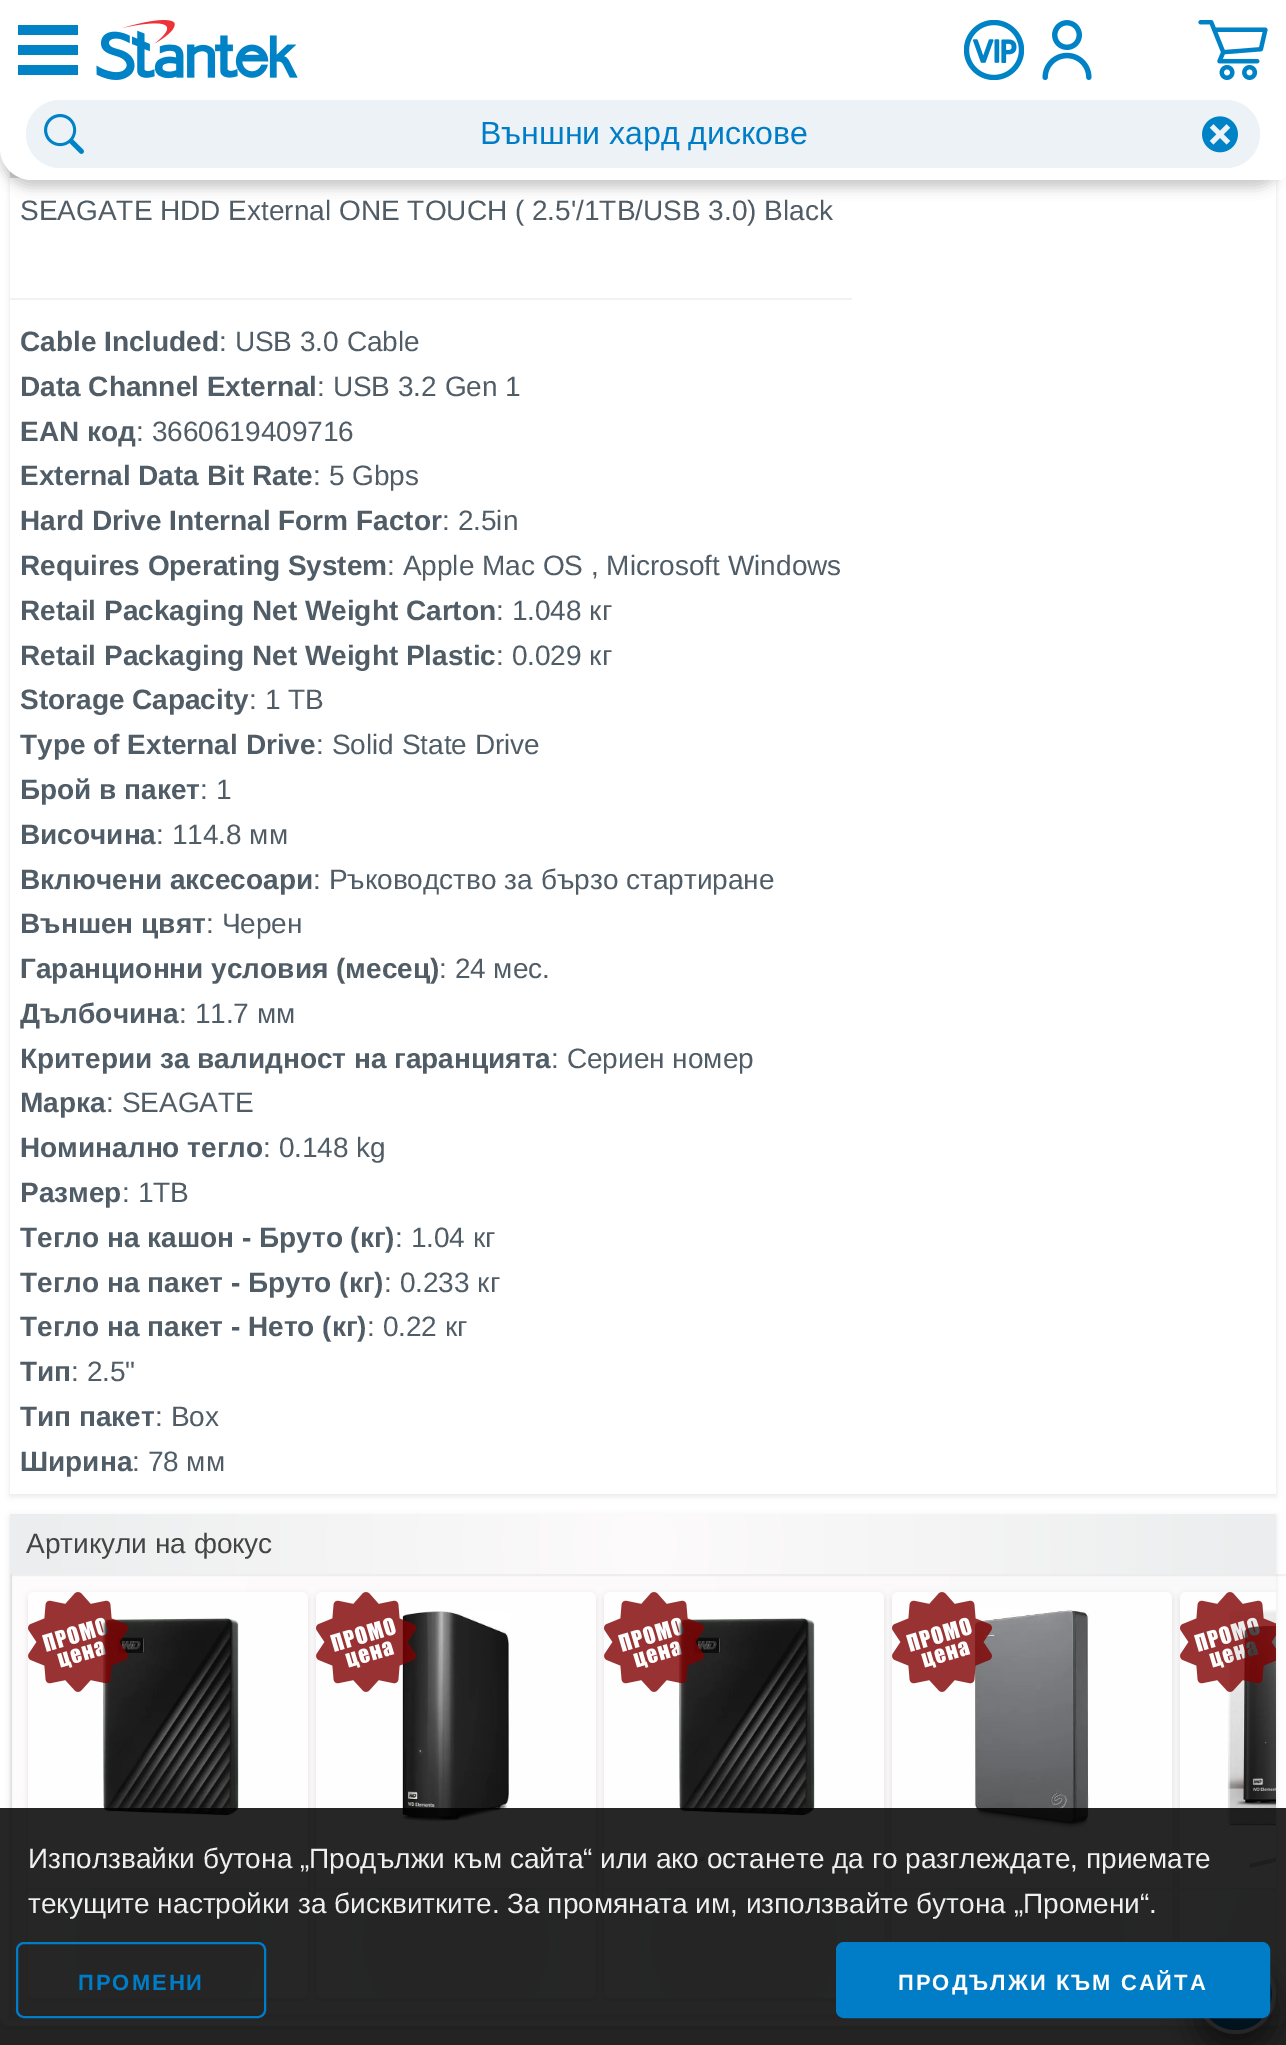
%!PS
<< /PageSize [1286 2045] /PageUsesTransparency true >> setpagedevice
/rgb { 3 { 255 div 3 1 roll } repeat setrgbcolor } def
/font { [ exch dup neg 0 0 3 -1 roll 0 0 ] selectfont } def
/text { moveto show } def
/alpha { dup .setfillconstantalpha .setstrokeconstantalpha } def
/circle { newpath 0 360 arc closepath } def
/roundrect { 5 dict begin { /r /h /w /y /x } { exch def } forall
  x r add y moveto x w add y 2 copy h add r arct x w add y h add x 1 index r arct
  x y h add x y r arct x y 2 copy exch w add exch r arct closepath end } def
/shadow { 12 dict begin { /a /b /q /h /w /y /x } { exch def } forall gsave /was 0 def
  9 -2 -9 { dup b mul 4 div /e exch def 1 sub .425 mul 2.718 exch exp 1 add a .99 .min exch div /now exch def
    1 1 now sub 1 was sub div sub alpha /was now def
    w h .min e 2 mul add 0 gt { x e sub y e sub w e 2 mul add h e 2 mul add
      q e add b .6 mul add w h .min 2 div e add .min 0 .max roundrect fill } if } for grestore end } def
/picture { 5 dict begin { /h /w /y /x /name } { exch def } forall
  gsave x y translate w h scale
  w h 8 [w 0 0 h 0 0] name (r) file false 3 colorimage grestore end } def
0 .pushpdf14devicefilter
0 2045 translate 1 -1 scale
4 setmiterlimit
255 255 255 rgb
0 0 1286 2045 rectfill
gsave 0 2016 moveto 1286 0 rlineto 0 29 rlineto -1286 0 rlineto closepath clip newpath 643 180 translate 1974 1974 scale
<< /ShadingType 3 /ColorSpace /DeviceRGB /Coords [0 0 0 0 0 1] /Extend [true true] /Function << /FunctionType 2 /Domain [0 1] /C0 [0.992 0.984 0.984] /C1 [0.922 0.929 0.933] /N 1 >> >> shfill grestore
0 0 0 rgb
0 -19 1286 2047 10 3 0.1 shadow
255 255 255 rgb
0 -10 1286 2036 10 roundrect fill
gsave
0 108 moveto 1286 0 rlineto 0 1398 rlineto -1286 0 rlineto closepath 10 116 moveto 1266 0 rlineto 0 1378 rlineto -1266 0 rlineto closepath eoclip newpath
0 0 0 rgb
10 118 1266 1378 0 3 0.1 shadow
grestore
gsave 10 171 moveto 11 0 rlineto 0 7 rlineto -11 0 rlineto closepath clip newpath 643 147 translate 634 634 scale
<< /ShadingType 3 /ColorSpace /DeviceRGB /Coords [0 0 0 0 0 1] /Extend [true true] /Function << /FunctionType 2 /Domain [0 1] /C0 [0.914 0.906 0.906] /C1 [0.843 0.851 0.855] /N 1 >> >> shfill grestore
0 0 0 rgb
0 8 1286 180 32 6 0.2 shadow
255 255 255 rgb
0 0 moveto 1286 0 rlineto 0 174 rlineto 0 3.5 -2.5 6 -6 6 rcurveto -1248 0 rlineto -17.5 0 -32 -14.5 -32 -32 rcurveto closepath fill
0 130 199 rgb
78 35 moveto -60 0 rlineto 0 -10 rlineto 60 0 rlineto closepath 78 45 moveto -60 0 rlineto 0 10 rlineto 60 0 rlineto closepath 78 65 moveto -60 0 rlineto 0 10 rlineto 60 0 rlineto closepath fill
(img_01.rgb) 96 20 202 60 picture
(img_02.rgb) 964 20 60 60 picture
(img_03.rgb) 1042 20 50 60 picture
(img_04.rgb) 1198 20 70 60 picture
236 242 246 rgb
26 100 1234 68 34 roundrect fill
(img_05.rgb) 44 114 40 40 picture
(img_06.rgb) 1202 116 36 37 picture
241 242 243 rgb
10 298 842 2 rectfill
0 0 0 rgb
10 1516 1266 502 0 3 0.1 shadow
gsave 10 1514 moveto 1266 0 rlineto 0 60 rlineto -1266 0 rlineto closepath clip newpath 643 1544 translate 634 634 scale
<< /ShadingType 3 /ColorSpace /DeviceRGB /Coords [0 0 0 0 0 1] /Extend [true true] /Function << /FunctionType 2 /Domain [0 1] /C0 [0.992 0.984 0.984] /C1 [0.922 0.929 0.933] /N 1 >> >> shfill grestore
gsave 12 1574 moveto 1264 0 rlineto 0 2 rlineto -1264 0 rlineto closepath clip newpath 7512 1357 translate 7503 7503 scale
<< /ShadingType 3 /ColorSpace /DeviceRGB /Coords [0 0 0 0 0 1] /Extend [true true] /Function << /FunctionType 2 /Domain [0 1] /C0 [0.922 0.929 0.933] /C1 [0.992 0.984 0.984] /N 1 >> >> shfill grestore
gsave 12 1576 moveto 1264 0 rlineto 0 438 rlineto -1264 0 rlineto closepath clip newpath 7512 1795 translate 7503 7503 scale
<< /ShadingType 3 /ColorSpace /DeviceRGB /Coords [0 0 0 0 0 1] /Extend [true true] /Function << /FunctionType 2 /Domain [0 1] /C0 [0.922 0.929 0.933] /C1 [0.992 0.984 0.984] /N 1 >> >> shfill grestore
gsave 12 2014 moveto 1264 0 rlineto 0 2 rlineto -1264 0 rlineto closepath clip newpath 7512 2233 translate 7503 7503 scale
<< /ShadingType 3 /ColorSpace /DeviceRGB /Coords [0 0 0 0 0 1] /Extend [true true] /Function << /FunctionType 2 /Domain [0 1] /C0 [0.922 0.929 0.933] /C1 [0.992 0.984 0.984] /N 1 >> >> shfill grestore
0.05 alpha
2 setlinewidth
11 1575 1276 440 rectstroke
gsave
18 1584 moveto 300 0 rlineto 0 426 rlineto -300 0 rlineto closepath 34 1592 moveto 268 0 rlineto 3.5 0 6 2.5 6 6 rcurveto 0 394 rlineto 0 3.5 -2.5 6 -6 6 rcurveto -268 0 rlineto -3.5 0 -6 -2.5 -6 -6 rcurveto 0 -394 rlineto 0 -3.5 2.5 -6 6 -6 rcurveto closepath eoclip newpath
1 alpha
28 1594 280 406 6 3 0.1 shadow
grestore
0.8 alpha
255 255 255 rgb
28 1592 280 406 6 roundrect fill
1 alpha
(img_08.rgb) 102 1618 137 198 picture
(img_07.rgb) 28 1592 100 100 picture
204 204 204 rgb
97.5 1864 moveto 31 -7.5 rlineto 0.5 4 rlineto -31 7.5 rlineto closepath fill
gsave 69 1888 moveto 181 0 rlineto 0 2 rlineto -181 0 rlineto closepath clip newpath 168 1836 translate 150 150 scale
<< /ShadingType 3 /ColorSpace /DeviceRGB /Coords [0 0 0 0 0 1] /Extend [true true] /Function << /FunctionType 2 /Domain [0 1] /C0 [0.961 0.969 0.973] /C1 [1 1 1] /N 1 >> >> shfill grestore
gsave 28 1890 moveto 280 0 rlineto 0 98 rlineto 0 5.5 -4.5 10 -10 10 rcurveto -260 0 rlineto -5.5 0 -10 -4.5 -10 -10 rcurveto closepath clip newpath 168 1944 translate 150 150 scale
<< /ShadingType 3 /ColorSpace /DeviceRGB /Coords [0 0 0 0 0 1] /Extend [true true] /Function << /FunctionType 2 /Domain [0 1] /C0 [0.961 0.969 0.973] /C1 [1 1 1] /N 1 >> >> shfill grestore
0.05 alpha
0 0 0 rgb
28 1888 280 2 rectfill
gsave
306 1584 moveto 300 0 rlineto 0 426 rlineto -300 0 rlineto closepath 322 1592 moveto 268 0 rlineto 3.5 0 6 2.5 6 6 rcurveto 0 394 rlineto 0 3.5 -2.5 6 -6 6 rcurveto -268 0 rlineto -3.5 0 -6 -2.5 -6 -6 rcurveto 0 -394 rlineto 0 -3.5 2.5 -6 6 -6 rcurveto closepath eoclip newpath
1 alpha
316 1594 280 406 6 3 0.1 shadow
grestore
0.8 alpha
255 255 255 rgb
316 1592 280 406 6 roundrect fill
1 alpha
(img_10.rgb) 402 1611 108 211 picture
(img_09.rgb) 316 1592 100 100 picture
204 204 204 rgb
385.5 1864 moveto 31 -7.5 rlineto 0.5 4 rlineto -31 7.5 rlineto closepath fill
gsave 374 1888 moveto 164 0 rlineto 0 2 rlineto -164 0 rlineto closepath clip newpath 456 1836 translate 150 150 scale
<< /ShadingType 3 /ColorSpace /DeviceRGB /Coords [0 0 0 0 0 1] /Extend [true true] /Function << /FunctionType 2 /Domain [0 1] /C0 [0.961 0.969 0.973] /C1 [1 1 1] /N 1 >> >> shfill grestore
gsave 316 1890 moveto 280 0 rlineto 0 98 rlineto 0 5.5 -4.5 10 -10 10 rcurveto -260 0 rlineto -5.5 0 -10 -4.5 -10 -10 rcurveto closepath clip newpath 456 1944 translate 150 150 scale
<< /ShadingType 3 /ColorSpace /DeviceRGB /Coords [0 0 0 0 0 1] /Extend [true true] /Function << /FunctionType 2 /Domain [0 1] /C0 [0.961 0.969 0.973] /C1 [1 1 1] /N 1 >> >> shfill grestore
0.05 alpha
0 0 0 rgb
316 1888 280 2 rectfill
gsave
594 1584 moveto 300 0 rlineto 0 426 rlineto -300 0 rlineto closepath 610 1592 moveto 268 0 rlineto 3.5 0 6 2.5 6 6 rcurveto 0 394 rlineto 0 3.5 -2.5 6 -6 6 rcurveto -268 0 rlineto -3.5 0 -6 -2.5 -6 -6 rcurveto 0 -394 rlineto 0 -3.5 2.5 -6 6 -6 rcurveto closepath eoclip newpath
1 alpha
604 1594 280 406 6 3 0.1 shadow
grestore
0.8 alpha
255 255 255 rgb
604 1592 280 406 6 roundrect fill
1 alpha
(img_12.rgb) 678 1618 137 198 picture
(img_11.rgb) 604 1592 100 100 picture
204 204 204 rgb
673.5 1864 moveto 31 -7.5 rlineto 0.5 4 rlineto -31 7.5 rlineto closepath fill
gsave 662 1888 moveto 164 0 rlineto 0 2 rlineto -164 0 rlineto closepath clip newpath 744 1836 translate 150 150 scale
<< /ShadingType 3 /ColorSpace /DeviceRGB /Coords [0 0 0 0 0 1] /Extend [true true] /Function << /FunctionType 2 /Domain [0 1] /C0 [0.961 0.969 0.973] /C1 [1 1 1] /N 1 >> >> shfill grestore
gsave 604 1890 moveto 280 0 rlineto 0 98 rlineto 0 5.5 -4.5 10 -10 10 rcurveto -260 0 rlineto -5.5 0 -10 -4.5 -10 -10 rcurveto closepath clip newpath 744 1944 translate 150 150 scale
<< /ShadingType 3 /ColorSpace /DeviceRGB /Coords [0 0 0 0 0 1] /Extend [true true] /Function << /FunctionType 2 /Domain [0 1] /C0 [0.961 0.969 0.973] /C1 [1 1 1] /N 1 >> >> shfill grestore
0.05 alpha
0 0 0 rgb
604 1888 280 2 rectfill
gsave
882 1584 moveto 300 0 rlineto 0 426 rlineto -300 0 rlineto closepath 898 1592 moveto 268 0 rlineto 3.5 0 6 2.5 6 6 rcurveto 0 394 rlineto 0 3.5 -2.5 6 -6 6 rcurveto -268 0 rlineto -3.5 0 -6 -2.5 -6 -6 rcurveto 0 -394 rlineto 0 -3.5 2.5 -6 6 -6 rcurveto closepath eoclip newpath
1 alpha
892 1594 280 406 6 3 0.1 shadow
grestore
0.8 alpha
255 255 255 rgb
892 1592 280 406 6 roundrect fill
1 alpha
(img_14.rgb) 974 1609 116 221 picture
(img_13.rgb) 892 1592 100 100 picture
204 204 204 rgb
983.5 1862.5 moveto 20 -4.5 rlineto 0.5 3.5 rlineto -20 5 rlineto closepath fill
gsave 950 1888 moveto 164 0 rlineto 0 2 rlineto -164 0 rlineto closepath clip newpath 1032 1836 translate 150 150 scale
<< /ShadingType 3 /ColorSpace /DeviceRGB /Coords [0 0 0 0 0 1] /Extend [true true] /Function << /FunctionType 2 /Domain [0 1] /C0 [0.961 0.969 0.973] /C1 [1 1 1] /N 1 >> >> shfill grestore
gsave 935 1890 moveto 194 0 rlineto 0 52 rlineto -194 0 rlineto closepath clip newpath 1032 1944 translate 150 150 scale
<< /ShadingType 3 /ColorSpace /DeviceRGB /Coords [0 0 0 0 0 1] /Extend [true true] /Function << /FunctionType 2 /Domain [0 1] /C0 [0.961 0.969 0.973] /C1 [1 1 1] /N 1 >> >> shfill grestore
0.05 alpha
0 0 0 rgb
892 1888 280 2 rectfill
gsave
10 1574 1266 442 rectclip
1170 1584 moveto 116 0 rlineto 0 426 rlineto -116 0 rlineto closepath 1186 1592 moveto 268 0 rlineto 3.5 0 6 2.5 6 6 rcurveto 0 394 rlineto 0 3.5 -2.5 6 -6 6 rcurveto -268 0 rlineto -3.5 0 -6 -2.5 -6 -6 rcurveto 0 -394 rlineto 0 -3.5 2.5 -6 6 -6 rcurveto closepath eoclip newpath
1 alpha
1180 1594 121 406 6 3 0.1 shadow
grestore
0.8 alpha
255 255 255 rgb
1186 1592 moveto 90 0 rlineto 0 406 rlineto -90 0 rlineto -3.5 0 -6 -2.5 -6 -6 rcurveto 0 -394 rlineto 0 -3.5 2.5 -6 6 -6 rcurveto closepath fill
1 alpha
(img_16.rgb) 1227 1610 49 216 picture
(img_15.rgb) 1180 1592 96 100 picture
gsave
10 1574 1266 442 rectclip
204 204 204 rgb
1249.5 1864 moveto 31 -7.5 rlineto 0.5 4 rlineto -31 7.5 rlineto closepath fill
grestore
gsave 1238 1888 moveto 38 0 rlineto 0 2 rlineto -38 0 rlineto closepath clip newpath 1320 1836 translate 150 150 scale
<< /ShadingType 3 /ColorSpace /DeviceRGB /Coords [0 0 0 0 0 1] /Extend [true true] /Function << /FunctionType 2 /Domain [0 1] /C0 [0.961 0.969 0.973] /C1 [1 1 1] /N 1 >> >> shfill grestore
gsave 1180 1890 moveto 96 0 rlineto 0 108 rlineto -96 0 rlineto closepath clip newpath 1320 1944 translate 150 150 scale
<< /ShadingType 3 /ColorSpace /DeviceRGB /Coords [0 0 0 0 0 1] /Extend [true true] /Function << /FunctionType 2 /Domain [0 1] /C0 [0.961 0.969 0.973] /C1 [1 1 1] /N 1 >> >> shfill grestore
0.05 alpha
0 0 0 rgb
1180 1888 96 2 rectfill
1 alpha
1196 1972 80 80 40 16 0.5 shadow
255 255 255 rgb
1236 1994 40 circle fill
0 130 199 rgb
1236 2030 moveto 35 0 49 -46 20 -66 rcurveto -6 -4 -13 -6 -20 -6 rcurveto -7 0 -14 2 -20 6 rcurveto -30 20 -15 66 20 66 rcurveto closepath 1249 2008 moveto -13 -13 rlineto -13 13 rlineto -8 -7 rlineto 21 -21 rlineto 21 21 rlineto closepath fill
0.85 alpha
0 0 0 rgb
0 1808 1286 237 rectfill
1 alpha
0 125 198 rgb
17 1943 248 74 7 roundrect stroke
837 1943 432 74 7 roundrect gsave fill grestore
stroke
/LiberationSans-Regular 32 font
(Външни хард дискове) 480 144 text
/LiberationSans-Regular 28 font
80 92 102 rgb
(SEAGATE HDD External ONE TOUCH \( 2.5'/1TB/USB 3.0\) Black) 20 220 text
/LiberationSans-Bold 28 font
(Cable Included) 20 351 text
/LiberationSans-Regular 28 font
(: USB 3.0 Cable) 219 351 text
/LiberationSans-Bold 28 font
(Data Channel External) 20 396 text
/LiberationSans-Regular 28 font
(: USB 3.2 Gen 1) 317 396 text
/LiberationSans-Bold 28 font
(EAN код) 20 441 text
/LiberationSans-Regular 28 font
(: 3660619409716) 136 441 text
/LiberationSans-Bold 28 font
(External Data Bit Rate) 20 485 text
/LiberationSans-Regular 28 font
(: 5 Gbps) 313 485 text
/LiberationSans-Bold 28 font
(Hard Drive Internal Form Factor) 20 530 text
/LiberationSans-Regular 28 font
(: 2.5in) 442 530 text
/LiberationSans-Bold 28 font
(Requires Operating System) 20 575 text
/LiberationSans-Regular 28 font
(: Apple Mac OS , Microsoft Windows) 387 575 text
/LiberationSans-Bold 28 font
(Retail Packaging Net Weight Carton) 20 620 text
/LiberationSans-Regular 28 font
(: 1.048 кг) 496 620 text
/LiberationSans-Bold 28 font
(Retail Packaging Net Weight Plastic) 20 665 text
/LiberationSans-Regular 28 font
(: 0.029 кг) 496 665 text
/LiberationSans-Bold 28 font
(Storage Capacity) 20 709 text
/LiberationSans-Regular 28 font
(: 1 TB) 249 709 text
/LiberationSans-Bold 28 font
(Type of External Drive) 20 754 text
/LiberationSans-Regular 28 font
(: Solid State Drive) 316 754 text
/LiberationSans-Bold 28 font
(Брой в пакет) 20 799 text
/LiberationSans-Regular 28 font
(: 1) 200 799 text
/LiberationSans-Bold 28 font
(Височина) 20 844 text
/LiberationSans-Regular 28 font
(: 114.8 мм) 156 844 text
/LiberationSans-Bold 28 font
(Включени аксесоари) 20 889 text
/LiberationSans-Regular 28 font
(: Ръководство за бързо стартиране) 313 889 text
/LiberationSans-Bold 28 font
(Външен цвят) 20 933 text
/LiberationSans-Regular 28 font
(: Черен) 206 933 text
/LiberationSans-Bold 28 font
(Гаранционни условия \(месец\)) 20 978 text
/LiberationSans-Regular 28 font
(: 24 мес.) 439 978 text
/LiberationSans-Bold 28 font
(Дълбочина) 20 1023 text
/LiberationSans-Regular 28 font
(: 11.7 мм) 179 1023 text
/LiberationSans-Bold 28 font
(Критерии за валидност на гаранцията) 20 1068 text
/LiberationSans-Regular 28 font
(: Сериен номер) 551 1068 text
/LiberationSans-Bold 28 font
(Марка) 20 1112 text
/LiberationSans-Regular 28 font
(: SEAGATE) 106 1112 text
/LiberationSans-Bold 28 font
(Номинално тегло) 20 1157 text
/LiberationSans-Regular 28 font
(: 0.148 kg) 263 1157 text
/LiberationSans-Bold 28 font
(Размер) 20 1202 text
/LiberationSans-Regular 28 font
(: 1TB) 122 1202 text
/LiberationSans-Bold 28 font
(Тегло на кашон - Бруто \(кг\)) 20 1247 text
/LiberationSans-Regular 28 font
(: 1.04 кг) 395 1247 text
/LiberationSans-Bold 28 font
(Тегло на пакет - Бруто \(кг\)) 20 1292 text
/LiberationSans-Regular 28 font
(: 0.233 кг) 384 1292 text
/LiberationSans-Bold 28 font
(Тегло на пакет - Нето \(кг\)) 20 1336 text
/LiberationSans-Regular 28 font
(: 0.22 кг) 367 1336 text
/LiberationSans-Bold 28 font
(Тип) 20 1381 text
/LiberationSans-Regular 28 font
(: 2.5") 71 1381 text
/LiberationSans-Bold 28 font
(Тип пакет) 20 1426 text
/LiberationSans-Regular 28 font
(: Box) 155 1426 text
/LiberationSans-Bold 28 font
(Ширина) 20 1471 text
/LiberationSans-Regular 28 font
(: 78 мм) 132 1471 text
68 68 68 rgb
(Артикули на фокус) 26 1553 text
239 239 239 rgb
(Използвайки бутона „Продължи към сайта“ или ако останете да го разглеждате, приемате) 28 1868 text
(текущите настройки за бисквитките. За промяната им, използвайте бутона „Промени“.) 28 1913 text
/LiberationSans-Bold 22 font
0 125 198 rgb
78 1990 moveto 2 0 (ПРОМЕНИ) ashow
255 255 255 rgb
898 1990 moveto 2 0 (ПРОДЪЛЖИ КЪМ САЙТА) ashow
.poppdf14devicefilter showpage
